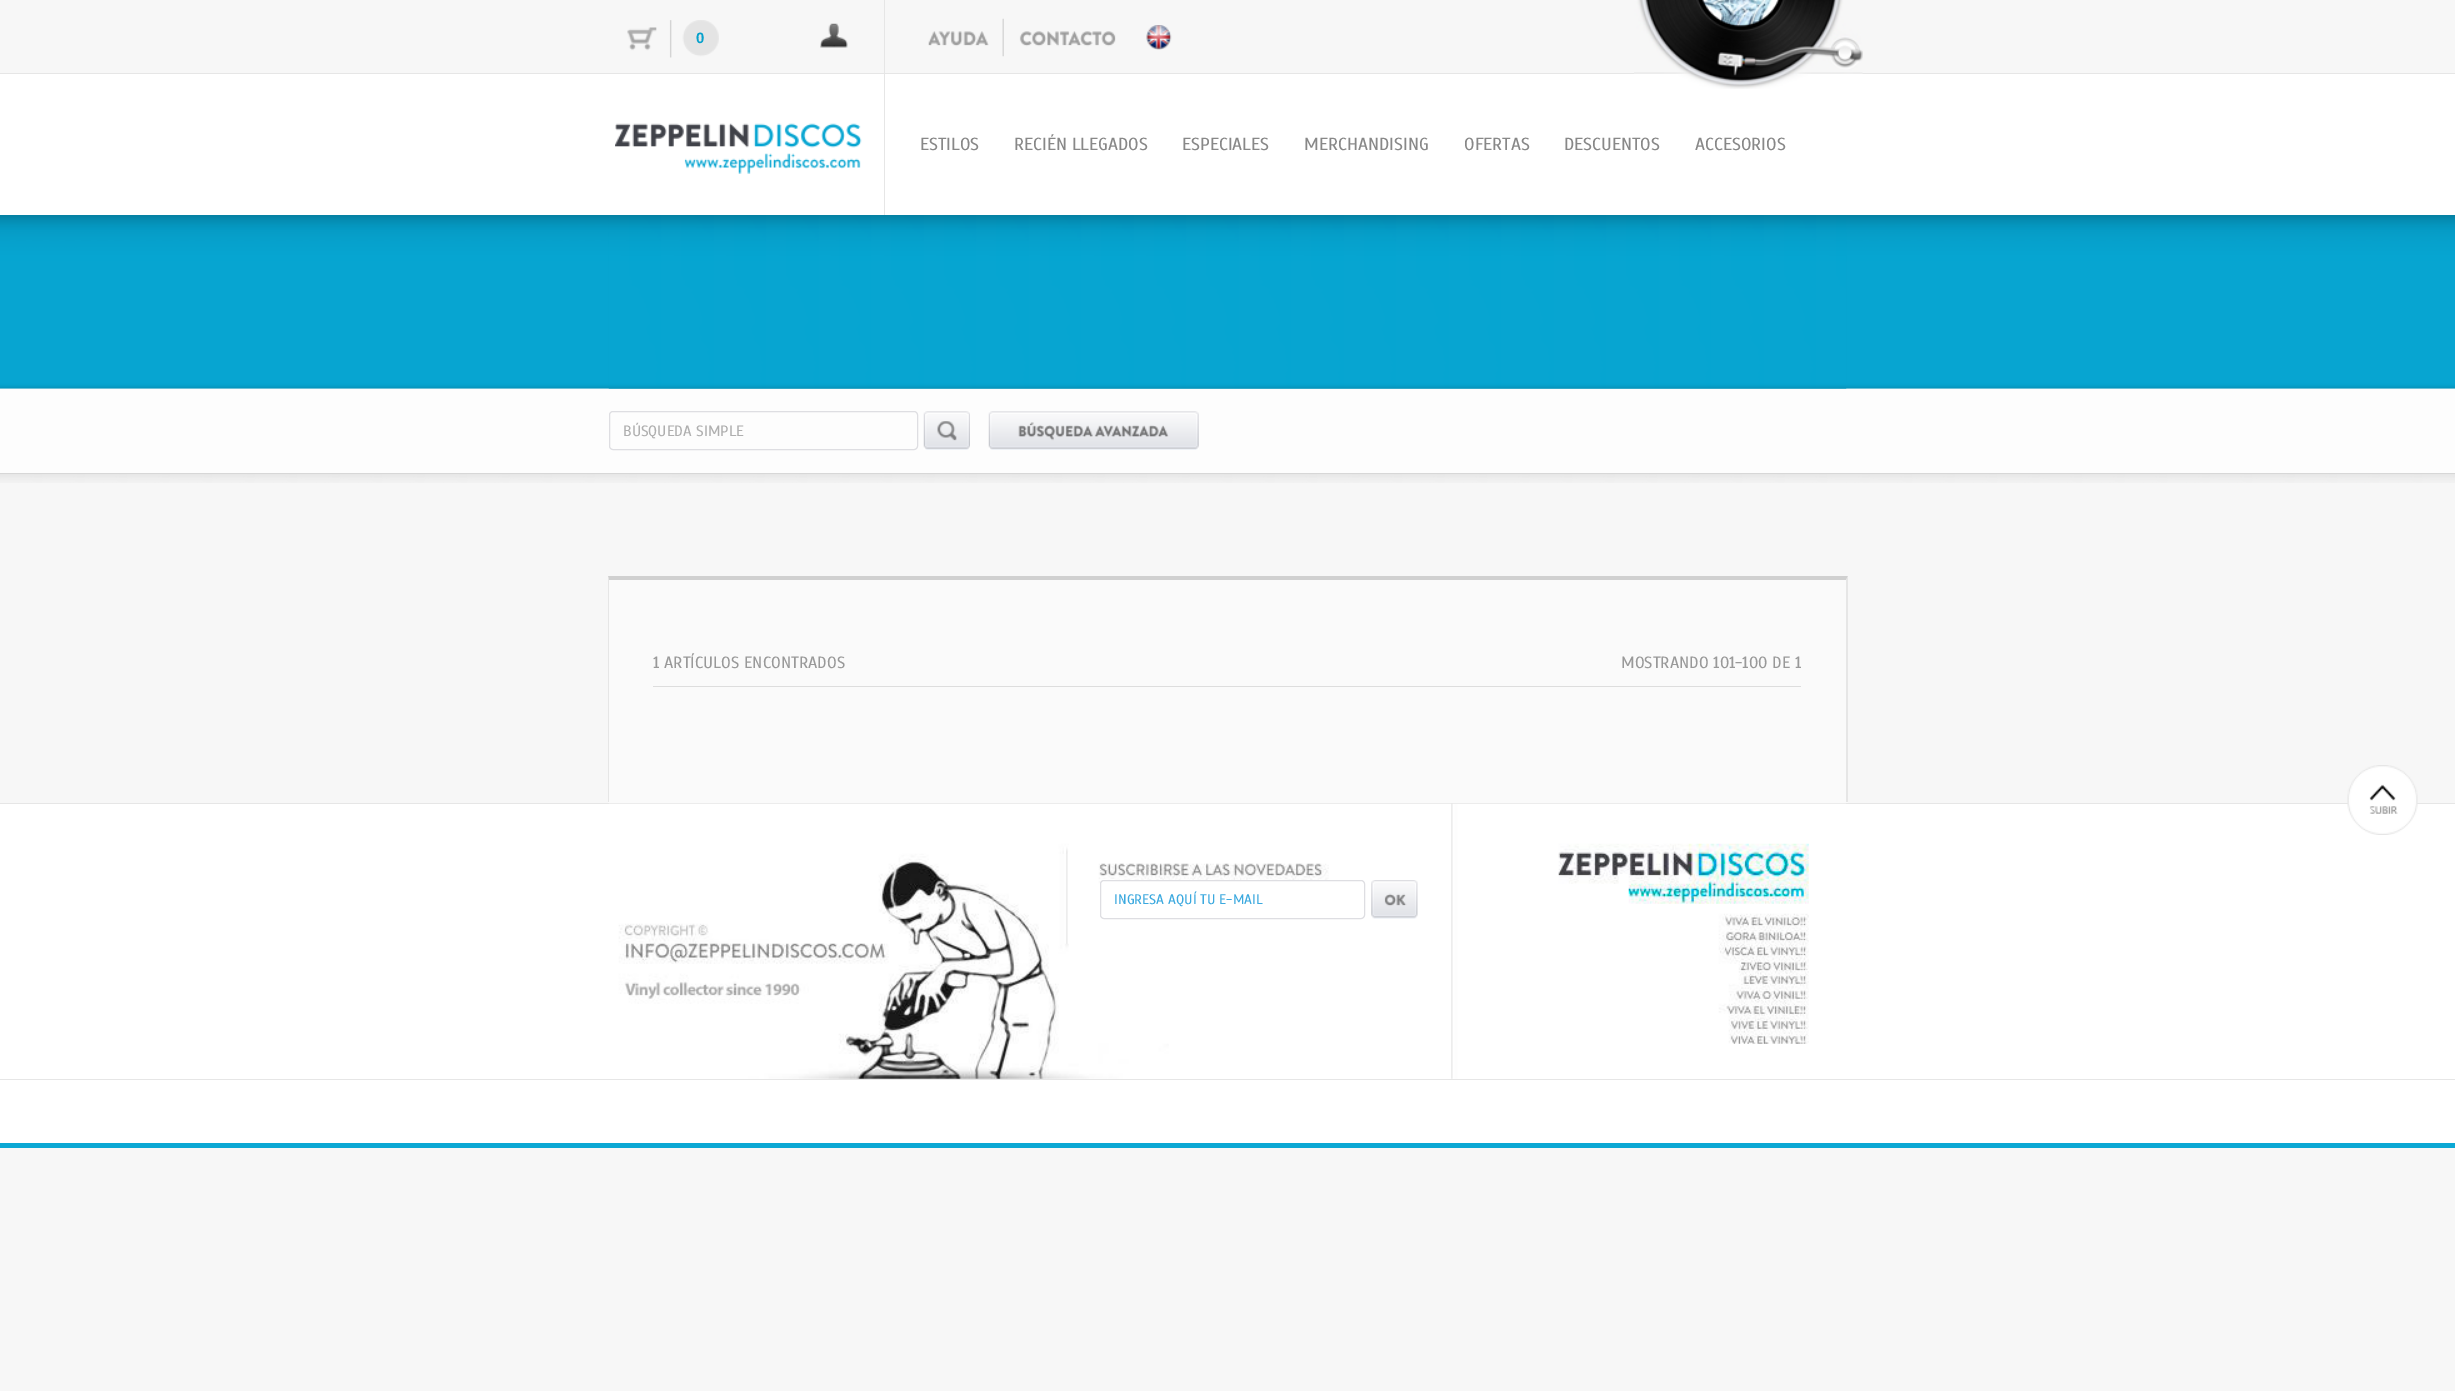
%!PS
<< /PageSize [2455 1391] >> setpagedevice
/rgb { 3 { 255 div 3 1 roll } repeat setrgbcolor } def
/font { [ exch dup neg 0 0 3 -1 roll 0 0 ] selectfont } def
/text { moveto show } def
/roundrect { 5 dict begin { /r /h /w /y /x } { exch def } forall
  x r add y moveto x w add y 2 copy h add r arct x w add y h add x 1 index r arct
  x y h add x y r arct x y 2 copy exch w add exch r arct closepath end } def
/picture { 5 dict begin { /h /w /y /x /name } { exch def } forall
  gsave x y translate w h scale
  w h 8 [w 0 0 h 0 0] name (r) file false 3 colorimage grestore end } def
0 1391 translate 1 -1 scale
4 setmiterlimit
247 247 247 rgb
0 0 2455 1391 rectfill
230 230 230 rgb
0 73 2455 1 rectfill
884 0 1 73 rectfill
(img_01.rgb) 627 20 92 38 picture
(img_02.rgb) 820 23 28 25 picture
(img_03.rgb) 928 18 188 39 picture
(img_04.rgb) 1146 25 26 25 picture
255 255 255 rgb
0 74 2455 141 rectfill
(img_05.rgb) 1634 0 229 89 picture
(img_06.rgb) 1862 51 1 7 picture
230 230 230 rgb
884 74 1 141 rectfill
(img_07.rgb) 615 123 247 51 picture
(img_08.rgb) 0 215 2455 174 picture
(img_09.rgb) 608 215 1239 174 picture
253 253 253 rgb
0 389 2455 84 rectfill
215 215 215 rgb
0 473 2455 1 rectfill
222 222 226 rgb
609.5 411.5 308 38 3.5 roundrect stroke
(img_10.rgb) 923 411 47 39 picture
(img_11.rgb) 988 411 211 39 picture
(img_12.rgb) 0 474 2455 9 picture
250 250 250 rgb
608 576 1240 227 rectfill
208 208 208 rgb
608 576 moveto 1240 0 rlineto -2 4 rlineto -1237 0 rlineto closepath fill
230 230 230 rgb
1848 576 moveto 0 226 rlineto -2 0 rlineto 0 -222 rlineto closepath fill
608 802 moveto 0 -226 rlineto 1 4 rlineto 0 222 rlineto closepath fill
221 221 221 rgb
653 686 1148 1 rectfill
255 255 255 rgb
0 804 2455 275 rectfill
230 230 230 rgb
0 803 2455 1 rectfill
0 1079 2455 1 rectfill
(img_13.rgb) 609 803 1237 276 picture
(img_14.rgb) 2347 765 71 70 picture
255 255 255 rgb
1100.5 880.5 264 38 3.5 roundrect gsave fill grestore
222 222 226 rgb
stroke
(img_15.rgb) 1371 880 47 39 picture
255 255 255 rgb
0 1080 2455 63 rectfill
11 168 212 rgb
0 1143 2455 5 rectfill
/LiberationSans-Bold 15 font
6 161 204 rgb
(0) 696 43 text
/Scada-Regular 17.5 font
136 136 136 rgb
(ESTILOS) 920 150 text
(RECIÉN LLEGADOS) 1014 150 text
(ESPECIALES) 1182 150 text
(MERCHANDISING) 1304 150 text
(OFERTAS) 1464 150 text
(DESCUENTOS) 1564 150 text
(ACCESORIOS) 1695 150 text
/Scada-Regular 15 font
175 175 175 rgb
(BÚSQUEDA SIMPLE) 623 436 text
/Scada-Regular 16.25 font
153 153 153 rgb
(1 ARTÍCULOS ENCONTRADOS) 653 668 text
(MOSTRANDO 101-100 DE 1) 1621 668 text
/Scada-Regular 13.75 font
59 169 223 rgb
(INGRESA AQUÍ TU E-MAIL) 1114 904 text
showpage
